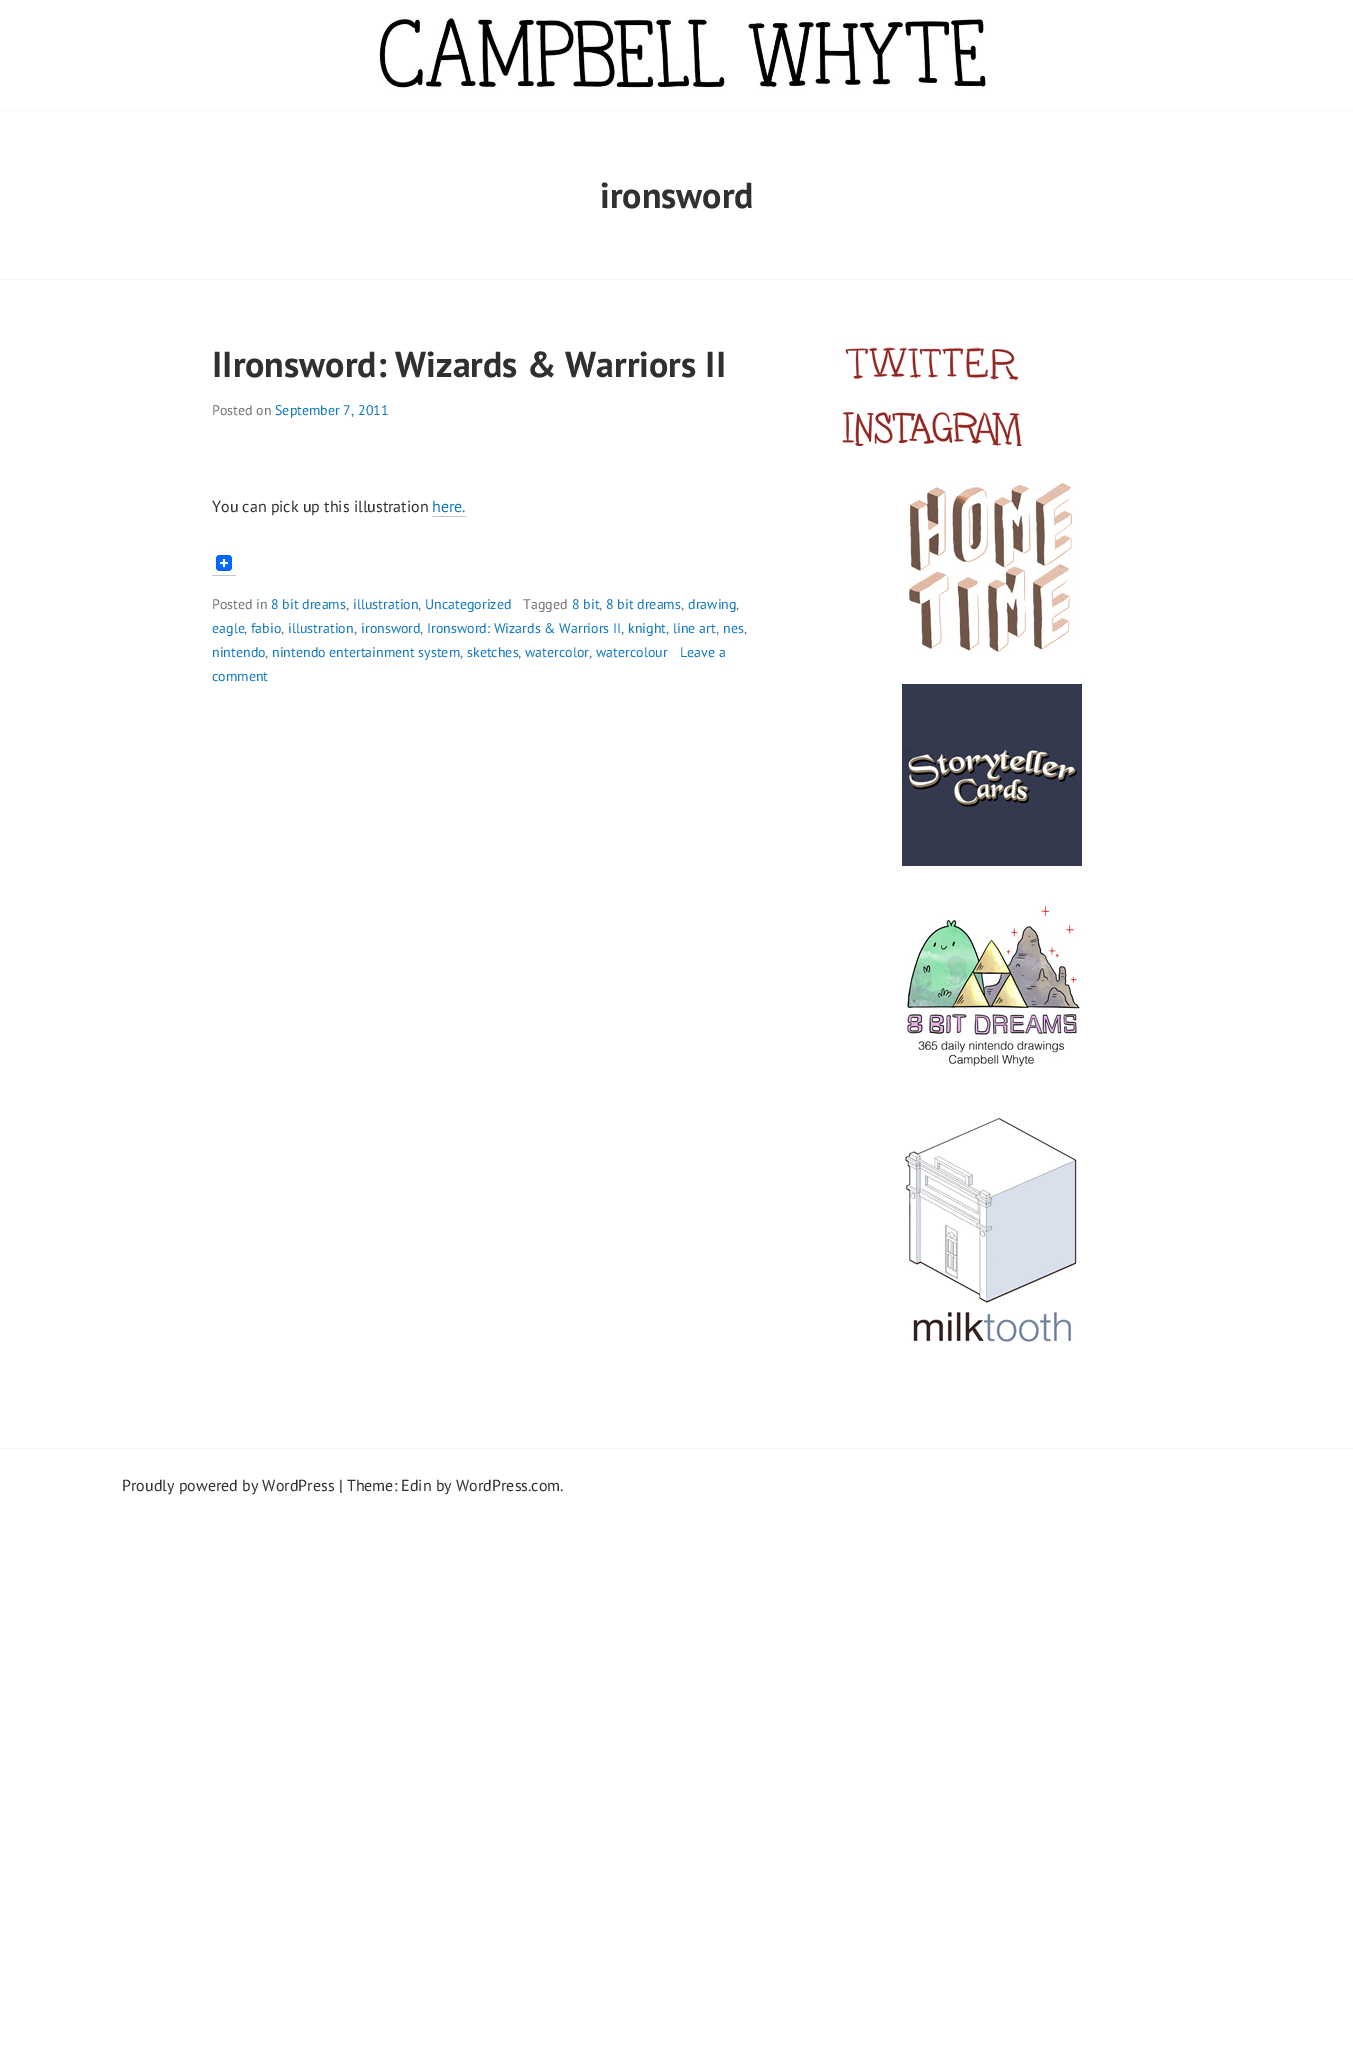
%!PS
<< /PageSize [1353 2067] >> setpagedevice
/rgb { 3 { 255 div 3 1 roll } repeat setrgbcolor } def
/font { [ exch dup neg 0 0 3 -1 roll 0 0 ] selectfont } def
/text { moveto show } def
/picture { 5 dict begin { /h /w /y /x /name } { exch def } forall
  gsave x y translate w h scale
  w h 8 [w 0 0 h 0 0] name (r) file false 3 colorimage grestore end } def
0 2067 translate 1 -1 scale
4 setmiterlimit
255 255 255 rgb
0 0 1353 2067 rectfill
248 248 248 rgb
0 110 1353 1 rectfill
(img_01.rgb) 379 17 607 72 picture
0 279 1353 1 rectfill
197 197 197 rgb
432 516 34 1 rectfill
212 575 24 1 rectfill
(img_02.rgb) 216 555 16 16 picture
(img_03.rgb) 845 347 174 34 picture
(img_04.rgb) 842 411 180 35 picture
(img_05.rgb) 909 483 164 170 picture
(img_06.rgb) 902 684 180 182 picture
(img_07.rgb) 907 906 173 161 picture
(img_08.rgb) 905 1118 172 225 picture
248 248 248 rgb
0 1448 1353 1 rectfill
/PTSans-Bold 36 font
48 48 48 rgb
(ironsword) 600 208 text
(IIronsword: Wizards & Warriors II) 212 377 text
/PTSans-Regular 14 font
117 117 117 rgb
(Posted on) 212 415 text
18 121 190 rgb
(September 7, 2011) 275 415 text
/PTSans-Regular 16 font
48 48 48 rgb
(You can pick up this illustration) 212 512 text
18 121 190 rgb
(here.) 432 512 text
/PTSans-Regular 14 font
117 117 117 rgb
(Posted in) 212 609 text
18 121 190 rgb
(8 bit dreams) 271 609 text
117 117 117 rgb
(,) 346 609 text
18 121 190 rgb
(illustration) 353 609 text
117 117 117 rgb
(,) 418 609 text
18 121 190 rgb
(Uncategorized) 425 609 text
117 117 117 rgb
(Tagged) 523 609 text
18 121 190 rgb
(8 bit) 572 609 text
117 117 117 rgb
(,) 599 609 text
18 121 190 rgb
(8 bit dreams) 606 609 text
117 117 117 rgb
(,) 681 609 text
18 121 190 rgb
(drawing) 688 609 text
117 117 117 rgb
(,) 736 609 text
18 121 190 rgb
(eagle) 212 633 text
117 117 117 rgb
(,) 244 633 text
18 121 190 rgb
(fabio) 251 633 text
117 117 117 rgb
(,) 281 633 text
18 121 190 rgb
(illustration) 288 633 text
117 117 117 rgb
(,) 354 633 text
18 121 190 rgb
(ironsword) 361 633 text
117 117 117 rgb
(,) 420 633 text
18 121 190 rgb
(Ironsword: Wizards & Warriors II) 427 633 text
117 117 117 rgb
(,) 621 633 text
18 121 190 rgb
(knight) 628 633 text
117 117 117 rgb
(,) 666 633 text
18 121 190 rgb
(line art) 673 633 text
117 117 117 rgb
(,) 716 633 text
18 121 190 rgb
(nes) 723 633 text
117 117 117 rgb
(,) 744 633 text
18 121 190 rgb
(nintendo) 212 657 text
117 117 117 rgb
(,) 265 657 text
18 121 190 rgb
(nintendo entertainment system) 272 657 text
117 117 117 rgb
(,) 460 657 text
18 121 190 rgb
(sketches) 467 657 text
117 117 117 rgb
(,) 518 657 text
18 121 190 rgb
(watercolor) 525 657 text
117 117 117 rgb
(,) 589 657 text
18 121 190 rgb
(watercolour) 596 657 text
(Leave a) 680 657 text
(comment) 212 681 text
/PTSans-Regular 16 font
48 48 48 rgb
(Proudly powered by WordPress | Theme: Edin by WordPress.com.) 122 1491 text
showpage
